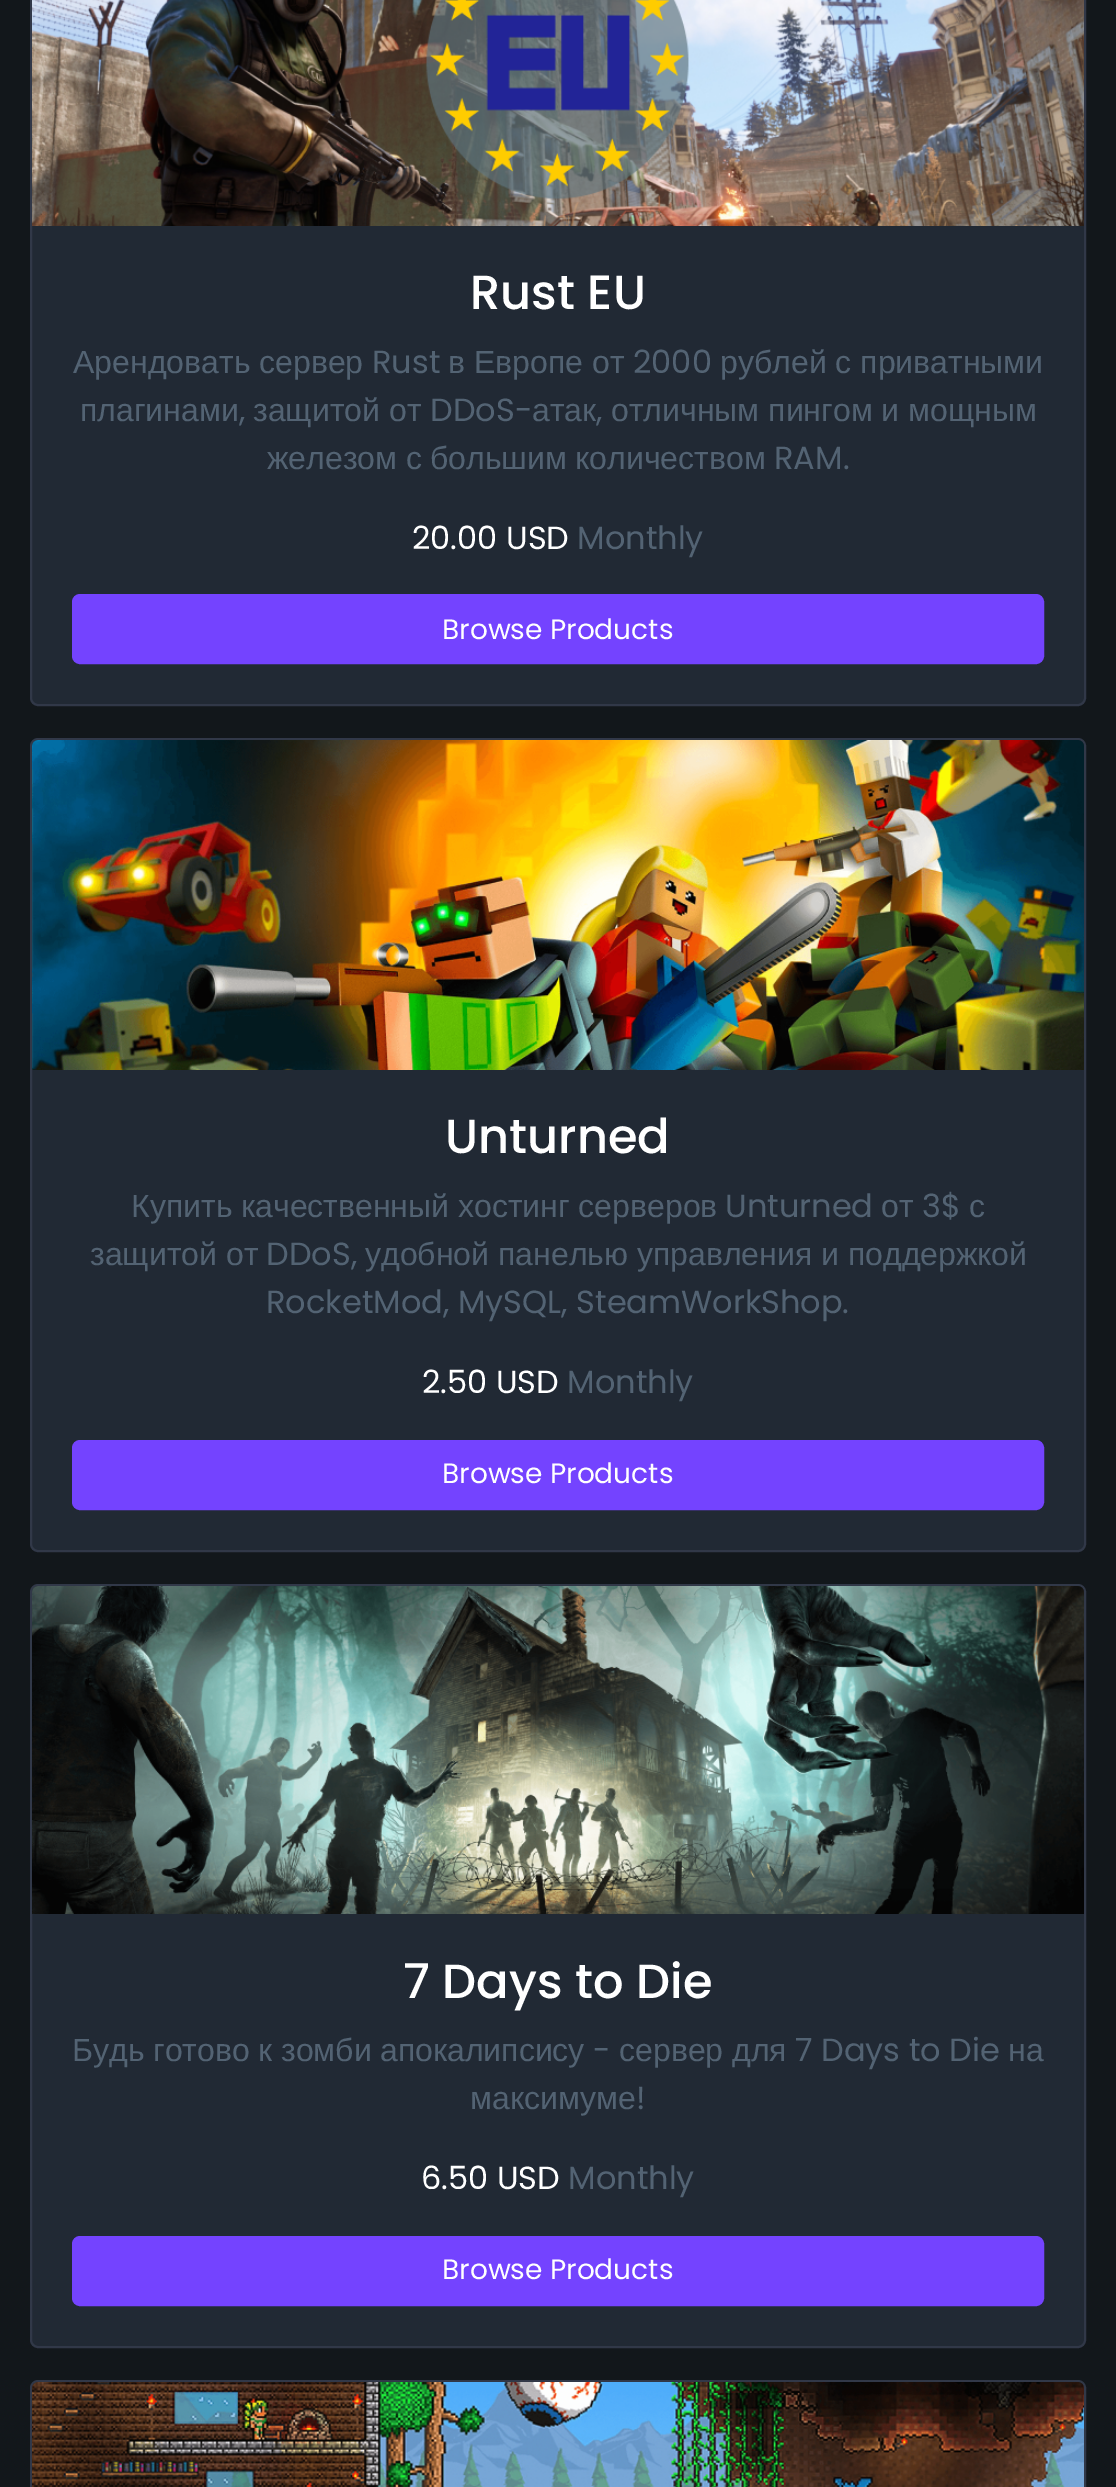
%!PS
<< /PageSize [1116 2487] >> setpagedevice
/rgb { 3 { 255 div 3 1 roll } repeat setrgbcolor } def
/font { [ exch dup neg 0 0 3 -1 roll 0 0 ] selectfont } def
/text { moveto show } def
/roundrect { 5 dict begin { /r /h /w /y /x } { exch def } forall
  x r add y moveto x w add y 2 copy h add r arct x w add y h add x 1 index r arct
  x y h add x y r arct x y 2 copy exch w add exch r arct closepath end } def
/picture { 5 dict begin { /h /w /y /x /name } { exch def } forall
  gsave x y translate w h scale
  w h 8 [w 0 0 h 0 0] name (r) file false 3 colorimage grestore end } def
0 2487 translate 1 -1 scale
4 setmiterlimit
18 23 27 rgb
0 0 1116 2487 rectfill
33 41 52 rgb
31 -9 1054 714 7 roundrect gsave fill grestore
49 56 72 rgb
2 setlinewidth
stroke
(img_01.rgb) 32 0 1052 226 picture
116 67 255 rgb
73 595 970 68 7 roundrect gsave fill grestore
stroke
33 41 52 rgb
31 739 1054 812 7 roundrect gsave fill grestore
49 56 72 rgb
stroke
(img_02.rgb) 32 740 1052 330 picture
116 67 255 rgb
73 1441 970 68 7 roundrect gsave fill grestore
stroke
33 41 52 rgb
31 1585 1054 762 7 roundrect gsave fill grestore
49 56 72 rgb
stroke
(img_03.rgb) 32 1586 1052 328 picture
116 67 255 rgb
73 2237 970 68 7 roundrect gsave fill grestore
stroke
49 56 72 rgb
31 2381 1054 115 7 roundrect stroke
(img_04.rgb) 32 2382 1052 105 picture
/Poppins-Medium 48 font
255 255 255 rgb
(Rust EU) 470 309 text
/LiberationSans-Regular 32 font
83 99 115 rgb
(Арендовать сервер) 73 373 text
/Poppins-Regular 32 font
(Rust) 372 373 text
/LiberationSans-Regular 32 font
(в Европе от) 448 373 text
/Poppins-Regular 32 font
(2000) 633 373 text
/LiberationSans-Regular 32 font
(рублей с приватными) 720 373 text
(плагинами) 80 421 text
/Poppins-Regular 32 font
(,) 239 421 text
/LiberationSans-Regular 32 font
(защитой от) 253 421 text
/Poppins-Regular 32 font
(DDoS-) 430 421 text
/LiberationSans-Regular 32 font
(атак) 532 421 text
/Poppins-Regular 32 font
(,) 596 421 text
/LiberationSans-Regular 32 font
(отличным пингом и мощным) 611 421 text
267 469 moveto -0.5 0 32 (железом с большим количеством) widthshow
/Poppins-Regular 32 font
(RAM.) 774 469 text
255 255 255 rgb
(20.00 USD) 412 549 text
83 99 115 rgb
(Monthly) 577 549 text
/Poppins-Regular 28 font
255 255 255 rgb
(Browse Products) 442 639 text
/Poppins-Medium 48 font
(Unturned) 445 1153 text
/LiberationSans-Regular 32 font
83 99 115 rgb
(Купить качественный хостинг серверов) 131 1217 text
/Poppins-Regular 32 font
(Unturned) 725 1217 text
/LiberationSans-Regular 32 font
(от) 881 1217 text
/Poppins-Regular 32 font
(3$) 922 1217 text
/LiberationSans-Regular 32 font
(с) 969 1217 text
(защитой от) 90 1265 text
/Poppins-Regular 32 font
(DDoS,) 266 1265 text
/LiberationSans-Regular 32 font
(удобной панелью управления и поддержкой) 365 1265 text
/Poppins-Regular 32 font
(RocketMod, MySQL, SteamWorkShop.) 266 1313 text
255 255 255 rgb
(2.50 USD) 422 1393 text
83 99 115 rgb
(Monthly) 567 1393 text
/Poppins-Regular 28 font
255 255 255 rgb
(Browse Products) 442 1483 text
/Poppins-Medium 48 font
(7 Days to Die) 403 1998 text
/LiberationSans-Regular 32 font
83 99 115 rgb
(Будь) 72 2061 text
(готово) 153 2061 text
(к) 258 2061 text
(зомби) 281 2061 text
(апокалипсису) 380 2061 text
/Poppins-Regular 32 font
(-) 593 2061 text
/LiberationSans-Regular 32 font
(сервер) 619 2061 text
(для) 732 2061 text
/Poppins-Regular 32 font
(7 Days to Die) 795 2061 text
/LiberationSans-Regular 32 font
(на) 1008 2061 text
(максимуме) 470 2109 text
/Poppins-Regular 32 font
(!) 636 2109 text
255 255 255 rgb
(6.50 USD) 421 2189 text
83 99 115 rgb
(Monthly) 568 2189 text
/Poppins-Regular 28 font
255 255 255 rgb
(Browse Products) 442 2279 text
showpage
